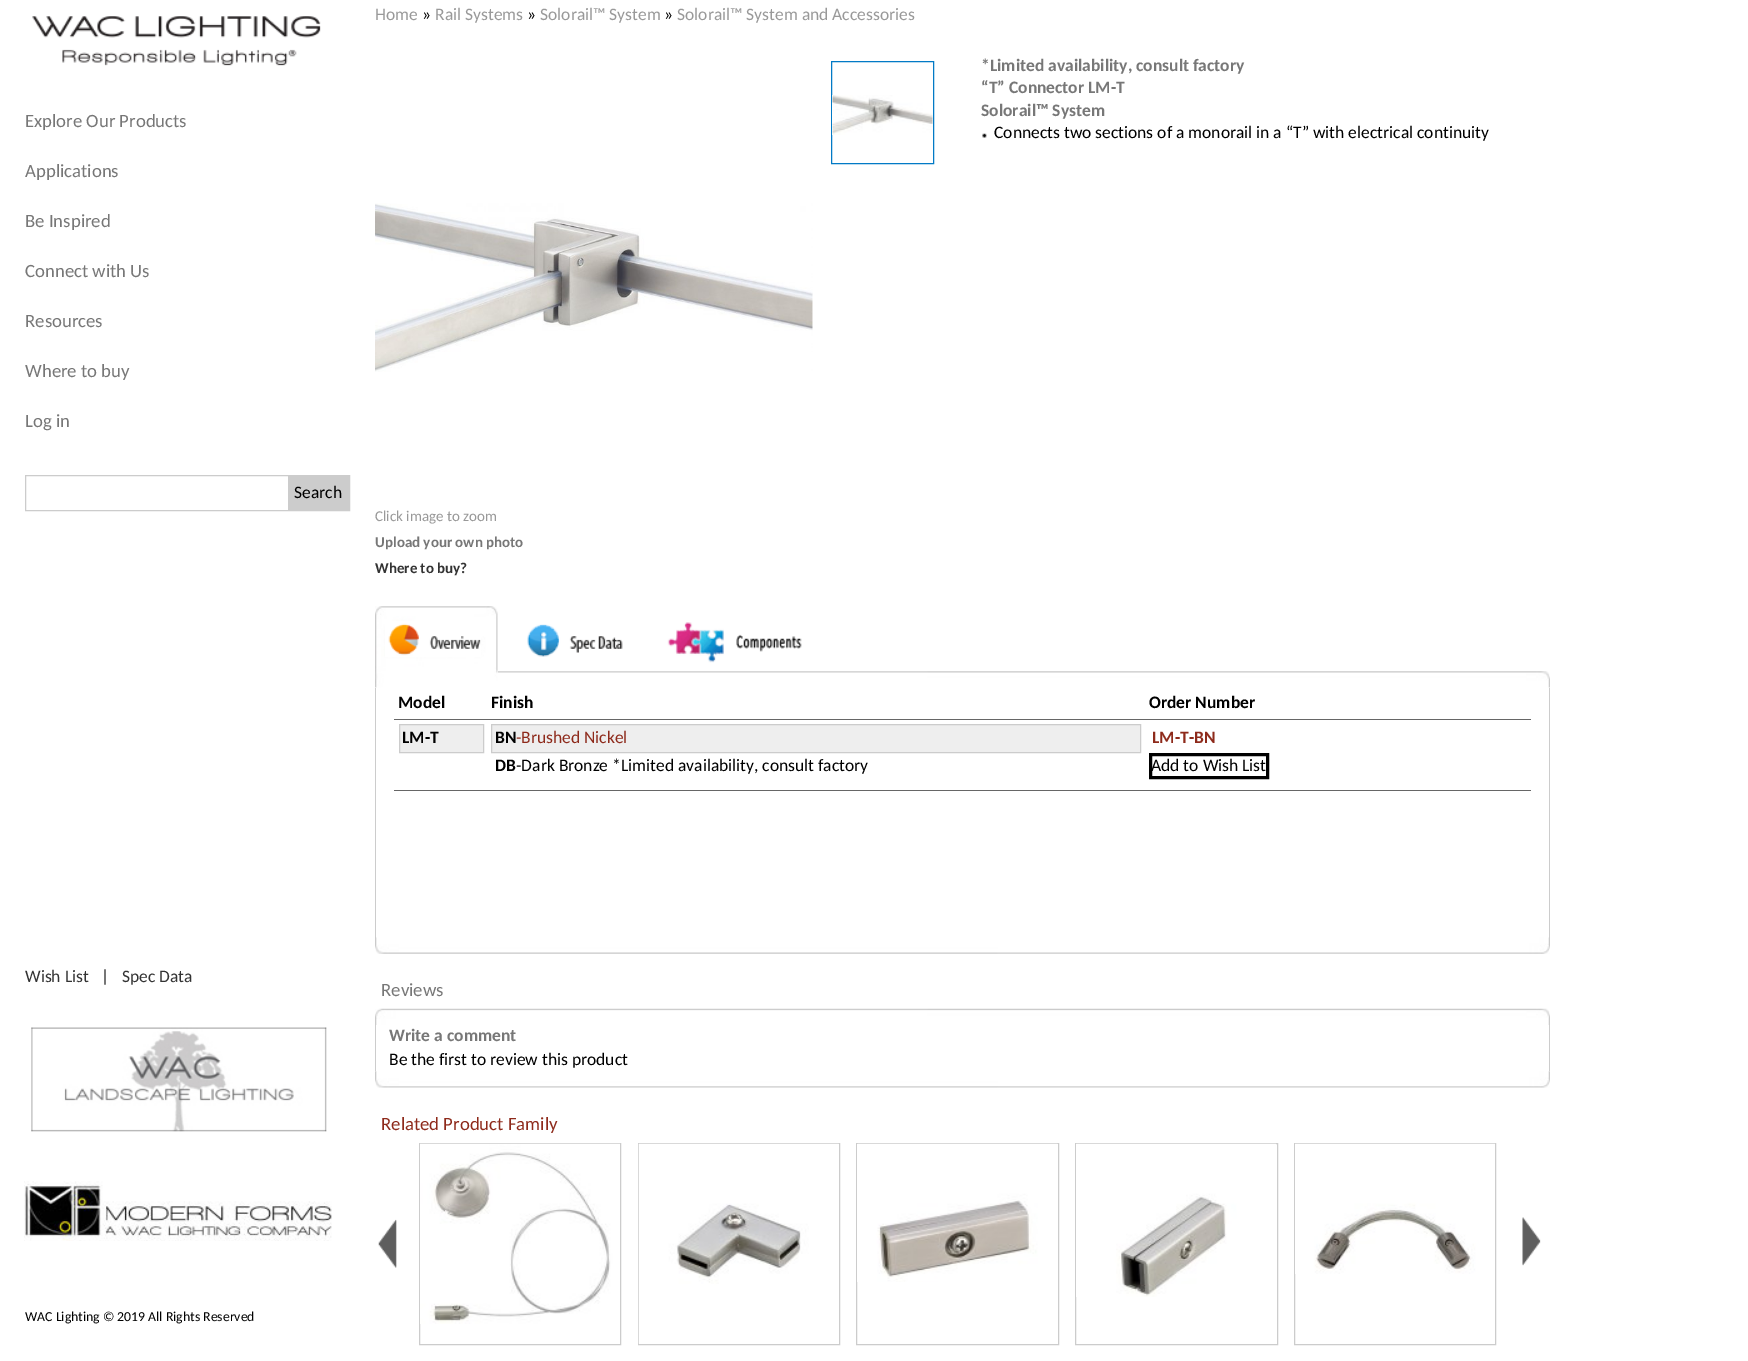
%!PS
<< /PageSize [1748 1361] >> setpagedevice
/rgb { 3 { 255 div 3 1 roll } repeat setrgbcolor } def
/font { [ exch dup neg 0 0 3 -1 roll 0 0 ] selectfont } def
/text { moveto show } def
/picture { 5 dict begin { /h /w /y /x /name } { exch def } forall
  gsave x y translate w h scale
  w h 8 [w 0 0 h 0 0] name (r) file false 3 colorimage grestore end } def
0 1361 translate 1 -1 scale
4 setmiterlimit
255 255 255 rgb
0 0 1748 1361 rectfill
(img_01.rgb) 32 16 289 50 picture
204 204 204 rgb
25.5 475.5 324 35 rectstroke
288 476 61 34 rectfill
(img_02.rgb) 31 1027 296 105 picture
(img_03.rgb) 24 1181 308 60 picture
2 122 198 rgb
831.5 61.5 102 102 rectstroke
(img_04.rgb) 832 95 101 40 picture
(img_05.rgb) 982 133 5 5 picture
(img_06.rgb) 375 203 438 169 picture
(img_07.rgb) 375 606 123 82 picture
(img_08.rgb) 385 621 96 36 picture
(img_09.rgb) 527 624 96 33 picture
(img_10.rgb) 667 622 135 41 picture
(img_11.rgb) 498 671 1052 17 picture
204 204 204 rgb
1549 688 1 250 rectfill
375 688 1 250 rectfill
102 102 102 rgb
394 719 1137 1 rectfill
394 790 1137 1 rectfill
238 238 238 rgb
399.5 724.5 moveto 84 0 rlineto 0 28 rlineto -84 0 rlineto closepath gsave fill grestore
204 204 204 rgb
stroke
238 238 238 rgb
491.5 724.5 moveto 649 0 rlineto 0 28 rlineto -649 0 rlineto closepath gsave fill grestore
204 204 204 rgb
stroke
0 0 0 rgb
3 setlinewidth
1150.5 754.5 117 23 rectstroke
(img_12.rgb) 375 937 1175 17 picture
(img_13.rgb) 375 1008 1175 17 picture
204 204 204 rgb
1549 1025 1 46 rectfill
375 1025 1 46 rectfill
(img_14.rgb) 375 1071 1175 17 picture
(img_15.rgb) 378 1219 19 49 picture
1 setlinewidth
419.5 1143.5 201 201 rectstroke
(img_16.rgb) 420 1143 200 181 picture
638.5 1143.5 201 201 rectstroke
(img_17.rgb) 638 1143 201 201 picture
856.5 1143.5 202 201 rectstroke
(img_18.rgb) 857 1143 201 139 picture
1075.5 1143.5 202 201 rectstroke
(img_19.rgb) 1076 1143 200 154 picture
1294.5 1143.5 201 201 rectstroke
(img_20.rgb) 1295 1143 200 131 picture
(img_21.rgb) 1522 1217 19 49 picture
/Carlito-Regular 18.75 font
119 119 119 rgb
(Explore Our Products) 25 127 text
(Applications) 25 177 text
(Be Inspired) 25 227 text
(Connect with Us) 25 277 text
(Resources) 25 327 text
(Where to buy) 25 377 text
(Log in) 25 427 text
/Carlito-Regular 17.5 font
0 0 0 rgb
(Search) 294 498 text
51 51 51 rgb
(Wish List) 25 982 text
0 0 0 rgb
(|) 101 982 text
51 51 51 rgb
(Spec Data) 122 982 text
/Carlito-Regular 13.75 font
0 0 0 rgb
(WAC Lighting © 2019 All Rights Reserved) 25 1321 text
/Carlito-Regular 17.5 font
153 153 153 rgb
(Home) 375 20 text
0 0 0 rgb
(») 422 20 text
153 153 153 rgb
(Rail Systems) 435 20 text
0 0 0 rgb
(») 527 20 text
153 153 153 rgb
(Solorail™ System) 540 20 text
0 0 0 rgb
(») 664 20 text
153 153 153 rgb
(Solorail™ System and Accessories) 677 20 text
/Carlito-Bold 17.5 font
119 119 119 rgb
(*Limited availability, consult factory) 981 71 text
(“T” Connector LM-T) 981 93 text
(Solorail™ System) 981 116 text
/Carlito-Regular 17.5 font
0 0 0 rgb
(Connects two sections of a monorail in a “T” with electrical continuity) 994 138 text
/Carlito-Regular 15 font
153 153 153 rgb
(Click image to zoom) 375 521 text
/Carlito-Bold 15 font
119 119 119 rgb
(Upload your own photo) 375 547 text
51 51 51 rgb
(Where to buy?) 375 573 text
/Carlito-Bold 17.5 font
0 0 0 rgb
(Model) 398 708 text
(Finish) 491 708 text
(Order Number) 1149 708 text
(LM-T) 402 743 text
(BN) 495 743 text
/Carlito-Regular 17.5 font
142 42 27 rgb
(-Brushed Nickel) 516 743 text
/Carlito-Bold 17.5 font
0 0 0 rgb
(DB) 495 771 text
/Carlito-Regular 17.5 font
(-Dark Bronze *Limited availability, consult factory) 516 771 text
/Carlito-Bold 17.5 font
142 42 27 rgb
(LM-T-BN) 1152 743 text
/Carlito-Regular 17.5 font
0 0 0 rgb
(Add to Wish List) 1151 771 text
/Carlito-Regular 18.75 font
119 119 119 rgb
(Reviews) 381 996 text
/Carlito-Bold 17.5 font
(Write a comment) 389 1041 text
/Carlito-Regular 17.5 font
0 0 0 rgb
(Be the first to review this product) 389 1065 text
/Carlito-Regular 18.75 font
142 42 27 rgb
(Related Product Family) 381 1130 text
showpage
